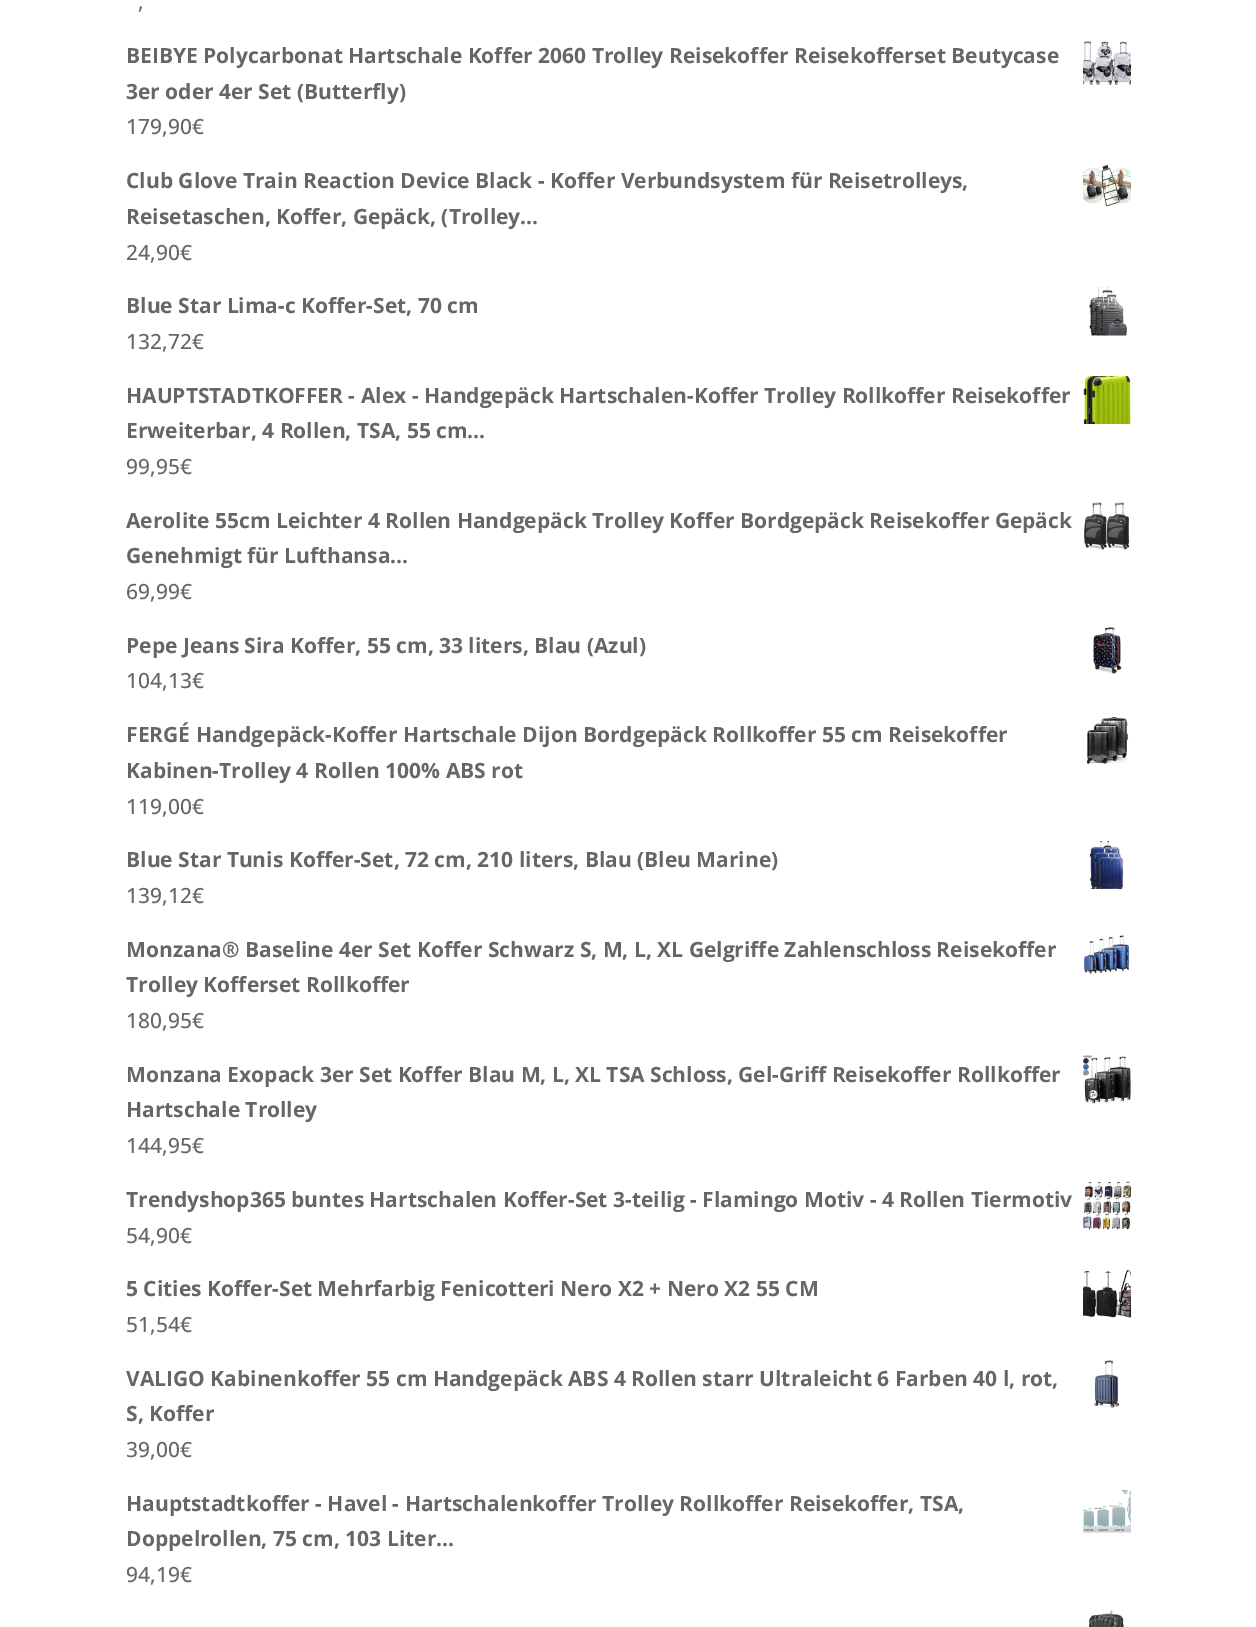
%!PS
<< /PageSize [1256 1627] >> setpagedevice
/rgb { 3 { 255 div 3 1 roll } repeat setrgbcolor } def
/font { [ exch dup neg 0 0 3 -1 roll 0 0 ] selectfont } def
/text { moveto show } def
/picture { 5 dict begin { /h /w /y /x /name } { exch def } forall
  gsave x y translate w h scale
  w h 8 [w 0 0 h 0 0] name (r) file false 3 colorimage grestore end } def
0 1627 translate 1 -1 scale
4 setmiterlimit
255 255 255 rgb
0 0 1256 1627 rectfill
(img_01.rgb) 1083 41 48 44 picture
(img_02.rgb) 1083 164 48 43 picture
(img_03.rgb) 1089 287 38 49 picture
(img_04.rgb) 1083 376 48 48 picture
(img_05.rgb) 1084 502 46 48 picture
(img_06.rgb) 1093 627 29 47 picture
(img_07.rgb) 1086 717 43 47 picture
(img_08.rgb) 1089 841 35 48 picture
(img_09.rgb) 1083 935 47 40 picture
(img_10.rgb) 1083 1055 48 49 picture
(img_11.rgb) 1083 1181 48 49 picture
(img_12.rgb) 1083 1270 48 48 picture
(img_13.rgb) 1094 1360 26 48 picture
(img_14.rgb) 1083 1490 48 43 picture
(img_15.rgb) 1088 1610 36 17 picture
/OpenSans-Medium 21 font
102 102 102 rgb
(,) 138 9 text
/OpenSans-Bold 21 font
(BEIBYE Polycarbonat Hartschale Koffer 2060 Trolley Reisekoffer Reisekofferset Beutycase) 126 63 text
(3er oder 4er Set \(Butterfly\)) 126 99 text
/OpenSans-Medium 21 font
(179,90€) 126 134 text
/OpenSans-Bold 21 font
(Club Glove Train Reaction Device Black - Koffer Verbundsystem für Reisetrolleys,) 126 188 text
(Reisetaschen, Koffer, Gepäck, \(Trolley…) 126 224 text
/OpenSans-Medium 21 font
(24,90€) 126 260 text
/OpenSans-Bold 21 font
(Blue Star Lima-c Koffer-Set, 70 cm) 126 313 text
/OpenSans-Medium 21 font
(132,72€) 126 349 text
/OpenSans-Bold 21 font
(HAUPTSTADTKOFFER - Alex - Handgepäck Hartschalen-Koffer Trolley Rollkoffer Reisekoffer) 126 403 text
(Erweiterbar, 4 Rollen, TSA, 55 cm…) 126 438 text
/OpenSans-Medium 21 font
(99,95€) 126 474 text
/OpenSans-Bold 21 font
(Aerolite 55cm Leichter 4 Rollen Handgepäck Trolley Koffer Bordgepäck Reisekoffer Gepäck) 126 528 text
(Genehmigt für Lufthansa…) 126 563 text
/OpenSans-Medium 21 font
(69,99€) 126 599 text
/OpenSans-Bold 21 font
(Pepe Jeans Sira Koffer, 55 cm, 33 liters, Blau \(Azul\)) 126 653 text
/OpenSans-Medium 21 font
(104,13€) 126 688 text
/OpenSans-Bold 21 font
(FERGÉ Handgepäck-Koffer Hartschale Dijon Bordgepäck Rollkoffer 55 cm Reisekoffer) 126 742 text
(Kabinen-Trolley 4 Rollen 100% ABS rot) 126 778 text
/OpenSans-Medium 21 font
(119,00€) 126 814 text
/OpenSans-Bold 21 font
(Blue Star Tunis Koffer-Set, 72 cm, 210 liters, Blau \(Bleu Marine\)) 126 867 text
/OpenSans-Medium 21 font
(139,12€) 126 903 text
/OpenSans-Bold 21 font
(Monzana® Baseline 4er Set Koffer Schwarz S, M, L, XL Gelgriffe Zahlenschloss Reisekoffer) 126 957 text
(Trolley Kofferset Rollkoffer) 126 992 text
/OpenSans-Medium 21 font
(180,95€) 126 1028 text
/OpenSans-Bold 21 font
(Monzana Exopack 3er Set Koffer Blau M, L, XL TSA Schloss, Gel-Griff Reisekoffer Rollkoffer) 126 1082 text
(Hartschale Trolley) 126 1117 text
/OpenSans-Medium 21 font
(144,95€) 126 1153 text
/OpenSans-Bold 21 font
(Trendyshop365 buntes Hartschalen Koffer-Set 3-teilig - Flamingo Motiv - 4 Rollen Tiermotiv) 126 1207 text
/OpenSans-Medium 21 font
(54,90€) 126 1243 text
/OpenSans-Bold 21 font
(5 Cities Koffer-Set Mehrfarbig Fenicotteri Nero X2 + Nero X2 55 CM) 126 1296 text
/OpenSans-Medium 21 font
(51,54€) 126 1332 text
/OpenSans-Bold 21 font
(VALIGO Kabinenkoffer 55 cm Handgepäck ABS 4 Rollen starr Ultraleicht 6 Farben 40 l, rot,) 126 1386 text
(S, Koffer) 126 1421 text
/OpenSans-Medium 21 font
(39,00€) 126 1457 text
/OpenSans-Bold 21 font
(Hauptstadtkoffer - Havel - Hartschalenkoffer Trolley Rollkoffer Reisekoffer, TSA,) 126 1511 text
(Doppelrollen, 75 cm, 103 Liter…) 126 1546 text
/OpenSans-Medium 21 font
(94,19€) 126 1582 text
showpage
